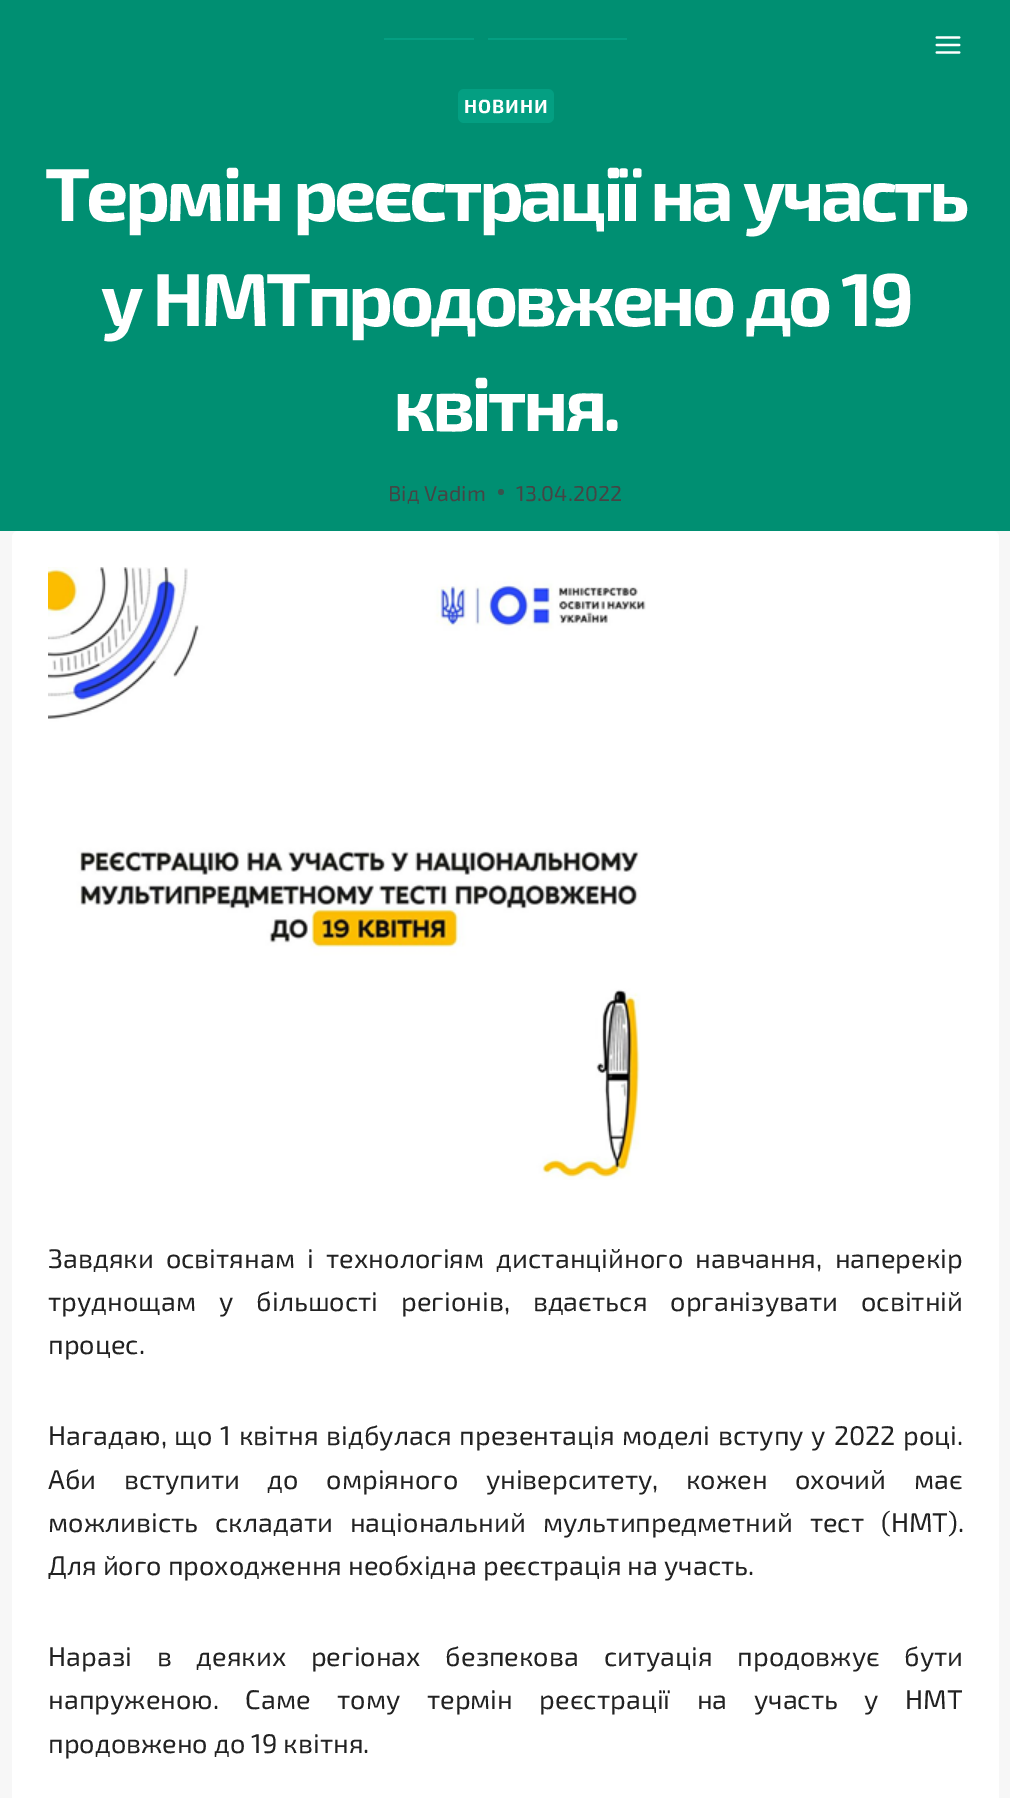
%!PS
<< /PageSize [1010 1798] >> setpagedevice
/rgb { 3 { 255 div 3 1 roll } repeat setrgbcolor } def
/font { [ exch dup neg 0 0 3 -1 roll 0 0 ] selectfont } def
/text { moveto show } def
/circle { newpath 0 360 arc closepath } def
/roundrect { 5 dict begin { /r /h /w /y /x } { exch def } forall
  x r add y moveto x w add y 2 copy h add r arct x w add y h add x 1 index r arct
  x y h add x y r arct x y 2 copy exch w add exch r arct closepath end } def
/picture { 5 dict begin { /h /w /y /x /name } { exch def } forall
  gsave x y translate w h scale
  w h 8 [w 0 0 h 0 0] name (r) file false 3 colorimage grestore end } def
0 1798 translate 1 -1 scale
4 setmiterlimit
247 247 247 rgb
0 0 1010 1798 rectfill
0 143 114 rgb
0 0 1010 531 rectfill
4 159 130 rgb
384 38 90 2 rectfill
488 38 139 2 rectfill
(img_01.rgb) 935 36 26 18 picture
458 89 96 34 6 roundrect fill
55 84 78 rgb
501 492 3 circle fill
255 255 255 rgb
12 531 987 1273 6 roundrect fill
(img_02.rgb) 48 567 598 613 picture
/Exo2-Bold 19 font
464 113 moveto 1 0 (НОВИНИ) ashow
/Exo2-Bold 75 font
45 221 moveto -3.75 0 (Термін реєстрації на участь) ashow
101 326 moveto -3.75 0 (у НМТпродовжено до 19) ashow
393 431 moveto -3.75 0 (квітня.) ashow
/Exo2-Regular 21.5 font
69 69 69 rgb
(Від Vadim) 388 501 text
(13.04.2022) 516 501 text
/Exo2-Regular 27 font
34 34 34 rgb
48 1268 moveto 6.25 0 32 (Завдяки освітянам і технологіям дистанційного навчання, наперекір) widthshow
48 1311 moveto 17 0 32 (труднощам у більшості регіонів, вдається організувати освітній) widthshow
(процес.) 48 1354 text
48 1445 moveto 1.75 0 32 (Нагадаю, що 1 квітня відбулася презентація моделі вступу у 2022 році.) widthshow
48 1489 moveto 21.5 0 32 (Аби вступити до омріяного університету, кожен охочий має) widthshow
48 1532 moveto 11 0 32 (можливість складати національний мультипредметний тест \(НМТ\).) widthshow
(Для його проходження необхідна реєстрація на участь.) 48 1575 text
48 1666 moveto 18.75 0 32 (Наразі в деяких регіонах безпекова ситуація продовжує бути) widthshow
48 1709 moveto 20.5 0 32 (напруженою. Саме тому термін реєстрації на участь у НМТ) widthshow
(продовжено до 19 квітня.) 48 1753 text
showpage
